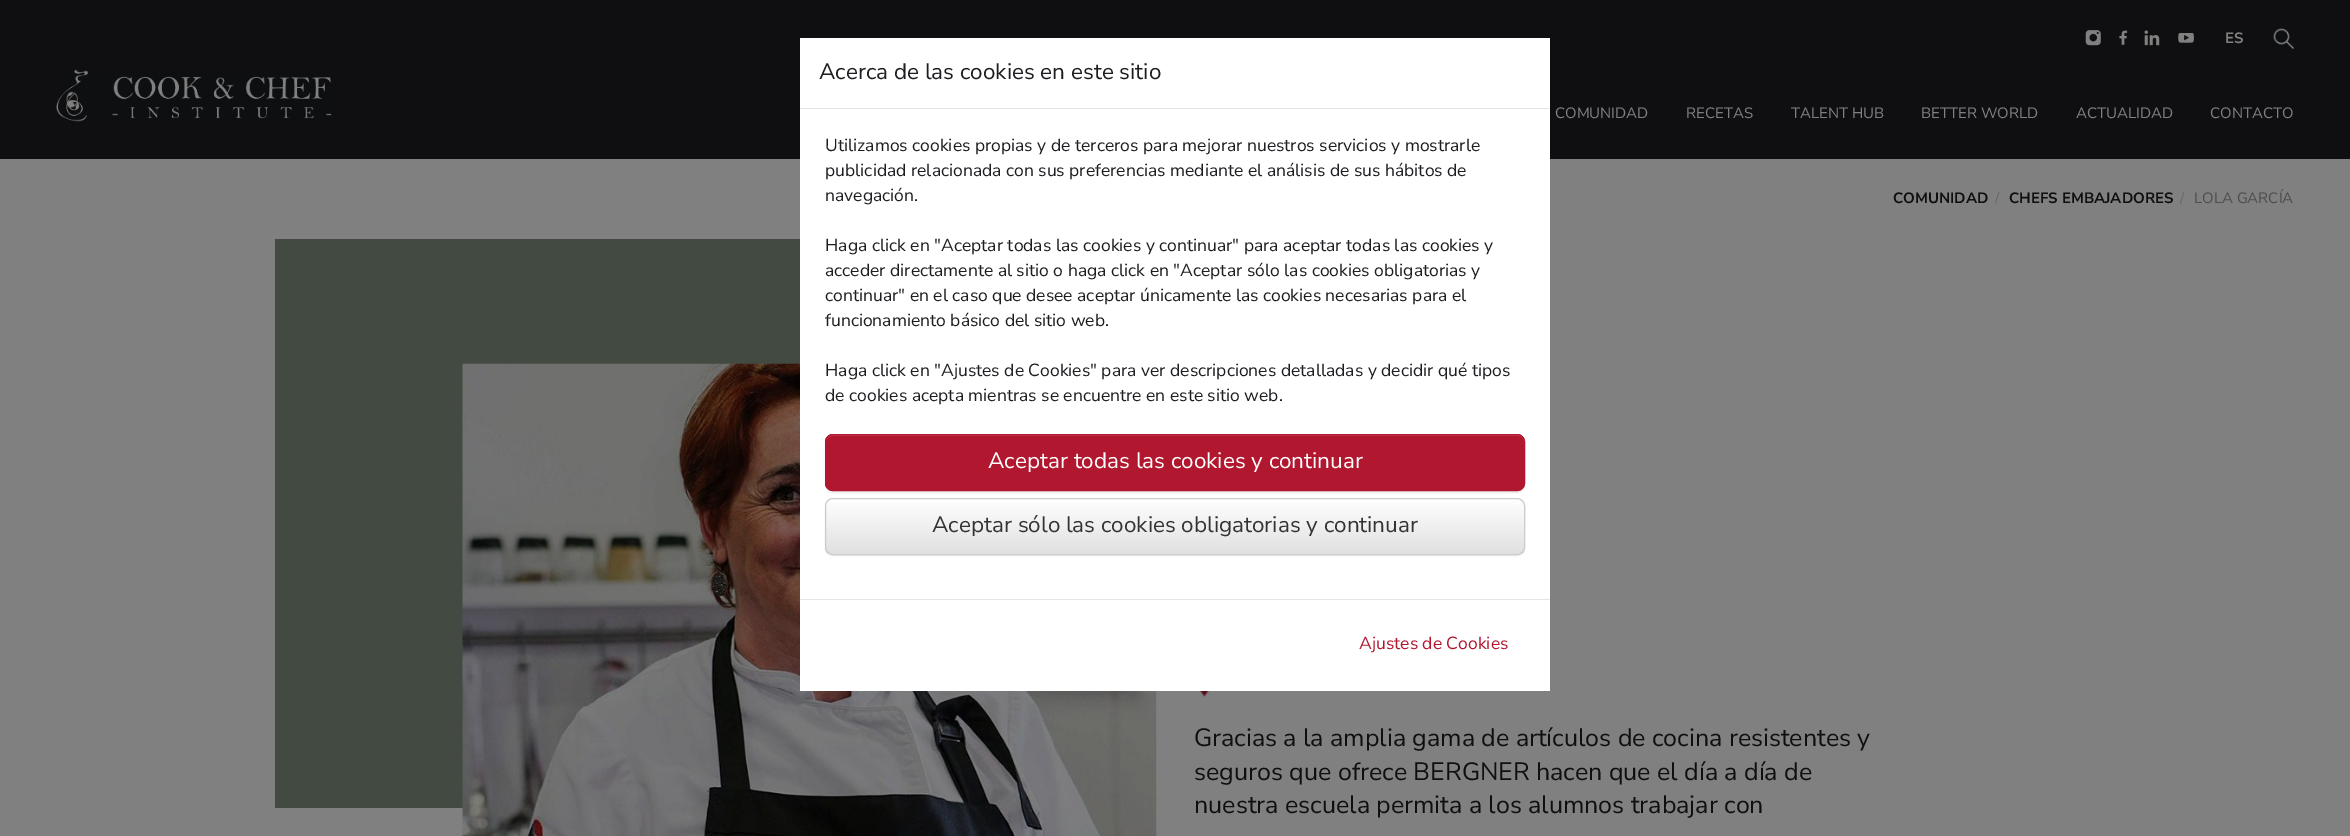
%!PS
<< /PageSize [2350 836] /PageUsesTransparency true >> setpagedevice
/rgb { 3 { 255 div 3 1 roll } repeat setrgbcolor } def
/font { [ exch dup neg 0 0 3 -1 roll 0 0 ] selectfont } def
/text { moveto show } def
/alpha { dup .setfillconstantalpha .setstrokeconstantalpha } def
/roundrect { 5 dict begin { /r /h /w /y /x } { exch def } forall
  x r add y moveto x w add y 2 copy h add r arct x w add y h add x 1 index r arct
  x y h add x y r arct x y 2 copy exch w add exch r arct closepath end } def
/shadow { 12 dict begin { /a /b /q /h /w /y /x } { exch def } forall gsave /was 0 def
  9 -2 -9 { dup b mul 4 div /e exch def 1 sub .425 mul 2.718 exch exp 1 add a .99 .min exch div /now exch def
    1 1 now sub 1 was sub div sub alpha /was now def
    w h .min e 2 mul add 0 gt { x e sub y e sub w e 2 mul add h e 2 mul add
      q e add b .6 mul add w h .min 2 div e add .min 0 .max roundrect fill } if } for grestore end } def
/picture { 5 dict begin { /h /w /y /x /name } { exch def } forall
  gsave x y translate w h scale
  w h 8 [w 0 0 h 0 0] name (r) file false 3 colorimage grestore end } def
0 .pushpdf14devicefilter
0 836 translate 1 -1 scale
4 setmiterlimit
128 128 128 rgb
0 0 2350 836 rectfill
15 15 17 rgb
0 0 2350 159 rectfill
66 74 66 rgb
275 239 525 569 rectfill
(img_07.rgb) 462 363 695 473 picture
255 255 255 rgb
800 38 750 653 rectfill
229 229 229 rgb
800 108 750 1 rectfill
0 0 0 rgb
825 435 700 58 8 0.5 0.07 shadow
177 24 48 rgb
825 434 700 57 8 roundrect fill
189 59 79 rgb
832 436 moveto 686 0 rlineto 3 0 6 3 6 6 rcurveto 0 -1 rlineto 0 -3 -3 -6 -6 -6 rcurveto -686 0 rlineto -3 0 -6 3 -6 6 rcurveto 0 1 rlineto 0 -3 3 -6 6 -6 rcurveto closepath fill
177 24 48 rgb
825.5 434.5 699 56 7.5 roundrect stroke
0 0 0 rgb
825 499 700 57 8 0.5 0.07 shadow
gsave
825 498 700 57 8 roundrect clip newpath
gsave 825 499 moveto 700 0 rlineto 0 55 rlineto -700 0 rlineto closepath clip newpath
<< /ShadingType 2 /ColorSpace /DeviceRGB /Coords [1175 499 1175 554] /Extend [true true] /Function << /FunctionType 2 /Domain [0 1] /C0 [1 1 1] /C1 [0.878 0.878 0.878] /N 1 >> >> shfill grestore
grestore
204 204 204 rgb
825.5 498.5 699 56 7.5 roundrect stroke
229 229 229 rgb
800 599 750 1 rectfill
(img_01.rgb) 2085 30 16 16 picture
(img_02.rgb) 2119 30 9 15 picture
(img_03.rgb) 2144 30 16 16 picture
(img_04.rgb) 2178 33 16 10 picture
(img_05.rgb) 2273 28 21 21 picture
(img_06.rgb) 56 70 276 52 picture
(img_08.rgb) 1200 691 9 6 picture
/NunitoSans-Regular 22.5 font
29 30 33 rgb
(Acerca de las cookies en este sitio) 819 79 text
/NunitoSans-Regular 17.5 font
(Utilizamos cookies propias y de terceros para mejorar nuestros servicios y mostrarle) 825 151 text
(publicidad relacionada con sus preferencias mediante el análisis de sus hábitos de) 825 176 text
(navegación.) 825 201 text
(Haga click en "Aceptar todas las cookies y continuar" para aceptar todas las cookies y) 825 251 text
(acceder directamente al sitio o haga click en "Aceptar sólo las cookies obligatorias y) 825 276 text
(continuar" en el caso que desee aceptar únicamente las cookies necesarias para el) 825 301 text
(funcionamiento básico del sitio web.) 825 326 text
(Haga click en "Ajustes de Cookies" para ver descripciones detalladas y decidir qué tipos) 825 376 text
(de cookies acepta mientras se encuentre en este sitio web.) 825 401 text
/NunitoSans-Regular 22.5 font
255 255 255 rgb
(Aceptar todas las cookies y continuar) 988 468 text
51 51 51 rgb
(Aceptar sólo las cookies obligatorias y continuar) 932 532 text
/NunitoSans-Regular 17.5 font
177 24 48 rgb
(Ajustes de Cookies) 1359 649 text
/NunitoSans-Bold 15 font
128 128 128 rgb
(ES) 2225 43 text
/NunitoSans-Regular 15 font
(COMUNIDAD) 1555 118 text
(RECETAS) 1686 118 text
(TALENT HUB) 1791 118 text
(BETTER WORLD) 1921 118 text
(ACTUALIDAD) 2076 118 text
(CONTACTO) 2210 118 text
/NunitoSans-Bold 15 font
15 15 17 rgb
(COMUNIDAD) 1893 203 text
/NunitoSans-Regular 15 font
102 102 102 rgb
(/) 1995 203 text
/NunitoSans-Bold 15 font
15 15 17 rgb
(CHEFS EMBAJADORES) 2009 203 text
/NunitoSans-Regular 15 font
102 102 102 rgb
(/) 2180 203 text
77 77 77 rgb
(LOLA GARCÍA) 2194 203 text
/NunitoSans-Regular 25 font
15 15 17 rgb
(Gracias a la amplia gama de artículos de cocina resistentes y) 1194 746 text
(seguros que ofrece BERGNER hacen que el día a día de) 1194 780 text
(nuestra escuela permita a los alumnos trabajar con) 1194 813 text
.poppdf14devicefilter showpage
